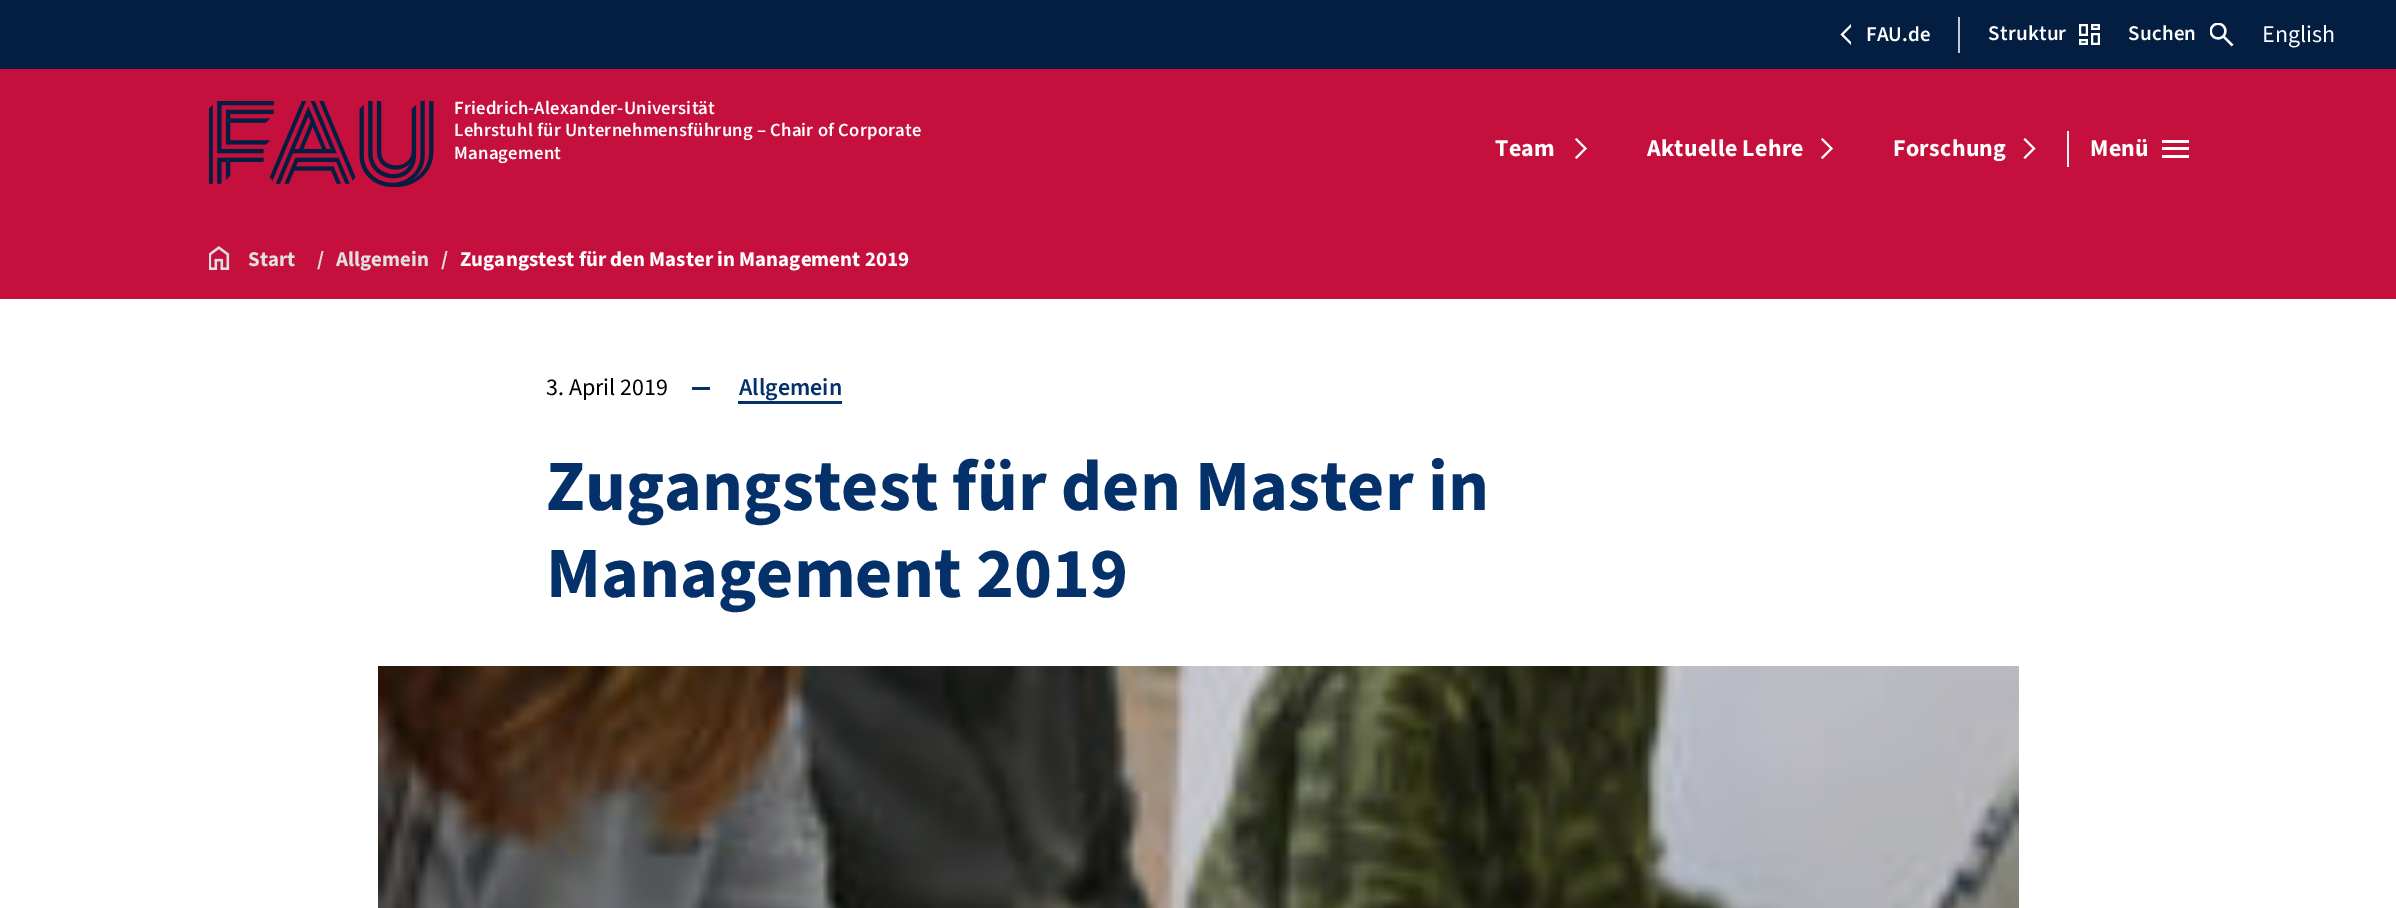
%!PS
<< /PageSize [2396 908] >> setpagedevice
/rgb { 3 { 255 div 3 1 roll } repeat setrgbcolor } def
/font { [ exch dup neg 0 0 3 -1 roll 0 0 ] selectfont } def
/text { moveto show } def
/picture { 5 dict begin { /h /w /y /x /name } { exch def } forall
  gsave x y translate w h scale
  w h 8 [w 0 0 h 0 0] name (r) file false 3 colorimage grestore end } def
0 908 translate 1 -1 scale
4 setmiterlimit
255 255 255 rgb
0 0 2396 908 rectfill
197 15 60 rgb
0 69 2396 230 rectfill
4 30 66 rgb
0 0 2396 69 rectfill
gsave
1839 24 12 21 rectclip
255 255 255 rgb
1851 45 moveto 1.5 -1.5 rlineto -9 -9 rlineto 9 -9 rlineto -1.5 -1.5 rlineto -10.5 10.5 rlineto closepath fill
grestore
192 203 218 rgb
1958 17 2 36 rectfill
(img_01.rgb) 2079 24 21 21 picture
(img_02.rgb) 2210 23 24 24 picture
(img_03.rgb) 209 101 225 86 picture
255 255 255 rgb
1576.5 159 moveto -1.5 -1.5 rlineto 9 -9 rlineto -9 -9 rlineto 1.5 -1.5 rlineto 10.5 10.5 rlineto closepath fill
1822.5 159 moveto -1.5 -1.5 rlineto 9 -9 rlineto -9 -9 rlineto 1.5 -1.5 rlineto 10.5 10.5 rlineto closepath fill
2025 159 moveto -1.5 -1.5 rlineto 9 -9 rlineto -9 -9 rlineto 1.5 -1.5 rlineto 10.5 10.5 rlineto closepath fill
242 242 242 rgb
2067 131 2 36 rectfill
255 255 255 rgb
2162 140 27 3 rectfill
2162 147 27 3 rectfill
2162 155 27 3 rectfill
(img_04.rgb) 209 246 21 24 picture
4 49 106 rgb
692 387 18 3 rectfill
738 401 104 3 rectfill
(img_05.rgb) 378 666 1641 242 picture
/SourceSans3-SemiBold 21 font
255 255 255 rgb
(FAU.de) 1866 41 text
1988 40 moveto 0.25 0 (Struktur) ashow
2128 40 moveto 0.25 0 (Suchen) ashow
/SourceSans3-Regular 24 font
(English) 2262 42 text
/SourceSans3-SemiBold 18.6 font
454 114 moveto 0.25 0 (Friedrich-Alexander-Universität) ashow
454 136 moveto 0.25 0 (Lehrstuhl für Unternehmensführung – Chair of Corporate) ashow
454 159 moveto 0.25 0 (Management) ashow
/SourceSans3-Bold 24 font
1495 156 moveto 0.25 0 (Team) ashow
1647 156 moveto 0.25 0 (Aktuelle Lehre) ashow
1893 156 moveto 0.25 0 (Forschung) ashow
2090 156 moveto 0.25 0 (Menü) ashow
/SourceSans3-Bold 21 font
224 224 224 rgb
(Start) 248 266 text
(/) 317 266 text
(Allgemein) 336 266 text
(/) 441 266 text
255 255 255 rgb
(Zugangstest für den Master in Management 2019) 460 266 text
/SourceSans3-Regular 24 font
0 0 0 rgb
(3. April 2019) 546 395 text
/SourceSans3-SemiBold 24 font
4 49 106 rgb
(Allgemein) 739 395 text
/SourceSans3-Bold 72 font
(Zugangstest für den Master in) 546 510 text
(Management 2019) 546 597 text
showpage
